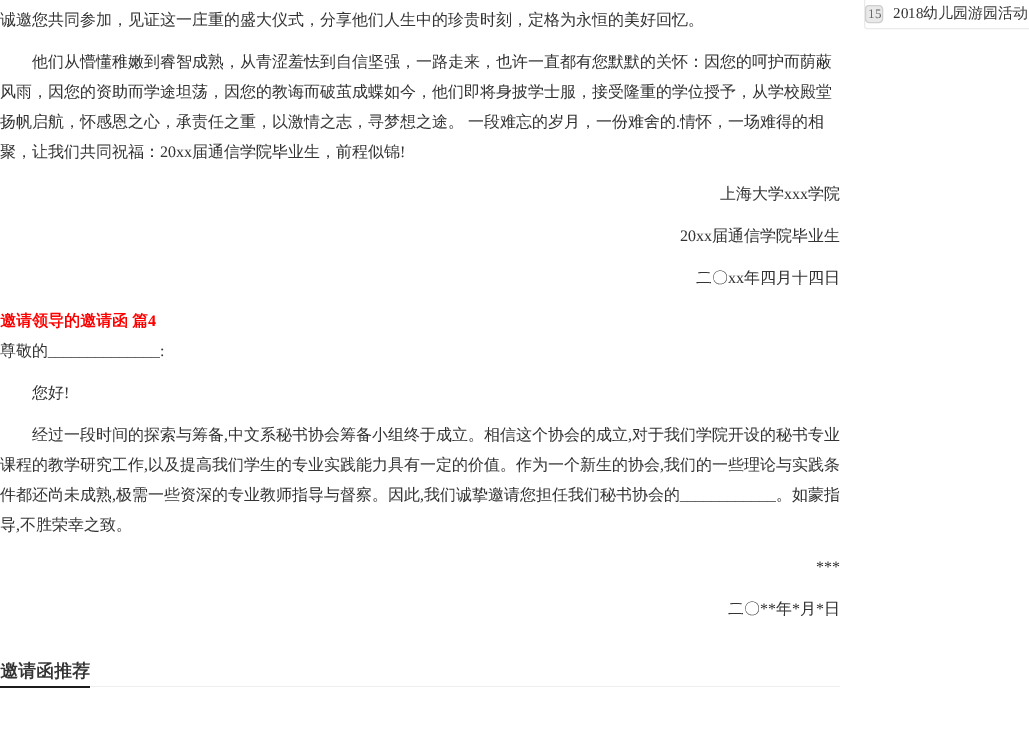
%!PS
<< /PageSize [1029 753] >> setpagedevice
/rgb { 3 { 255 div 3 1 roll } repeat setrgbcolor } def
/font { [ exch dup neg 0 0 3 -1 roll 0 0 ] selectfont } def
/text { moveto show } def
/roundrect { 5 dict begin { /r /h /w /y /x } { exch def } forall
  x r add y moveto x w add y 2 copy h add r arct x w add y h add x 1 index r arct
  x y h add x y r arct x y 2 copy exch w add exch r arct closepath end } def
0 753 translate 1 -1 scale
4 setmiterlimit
255 255 255 rgb
0 0 1029 753 rectfill
238 238 238 rgb
90 686 750 1 rectfill
28 28 28 rgb
0 686 90 2 rectfill
234 234 234 rgb
864.5 -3.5 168 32 2.5 roundrect stroke
233 233 233 rgb
865.5 5.5 17 17 3.5 roundrect gsave fill grestore
207 207 207 rgb
stroke
/WenQuanYiZenHei-Medium 16 font
51 51 51 rgb
(诚邀您共同参加，见证这一庄重的盛大仪式，分享他们人生中的珍贵时刻，定格为永恒的美好回忆。) 0 25 text
(他们从懵懂稚嫩到睿智成熟，从青涩羞怯到自信坚强，一路走来，也许一直都有您默默的关怀：因您的呵护而荫蔽) 32 67 text
(风雨，因您的资助而学途坦荡，因您的教诲而破茧成蝶如今，他们即将身披学士服，接受隆重的学位授予，从学校殿堂) 0 97 text
0 127 moveto -1 0 32 (扬帆启航，怀感恩之心，承责任之重，以激情之志，寻梦想之途。 一段难忘的岁月，一份难舍的) widthshow
/LiberationSerif-Regular 16 font
(.) 676 127 text
/WenQuanYiZenHei-Medium 16 font
(情怀，一场难得的相) 680 127 text
(聚，让我们共同祝福：) 0 157 text
/LiberationSerif-Regular 16 font
(20xx) 160 157 text
/WenQuanYiZenHei-Medium 16 font
(届通信学院毕业生，前程似锦) 192 157 text
/LiberationSerif-Regular 16 font
(!) 400 157 text
/WenQuanYiZenHei-Medium 16 font
(上海大学) 720 199 text
/LiberationSerif-Regular 16 font
(xxx) 784 199 text
/WenQuanYiZenHei-Medium 16 font
(学院) 808 199 text
/LiberationSerif-Regular 16 font
(20xx) 680 241 text
/WenQuanYiZenHei-Medium 16 font
(届通信学院毕业生) 712 241 text
(二〇) 696 283 text
/LiberationSerif-Regular 16 font
(xx) 728 283 text
/WenQuanYiZenHei-Medium 16 font
(年四月十四日) 744 283 text
/WenQuanYiZenHei-Bold 16 font
255 0 0 rgb
0 326 moveto -1 0 32 (邀请领导的邀请函 篇) widthshow
/LiberationSerif-Bold 16 font
(4) 148 326 text
/WenQuanYiZenHei-Medium 16 font
51 51 51 rgb
(尊敬的) 0 356 text
/LiberationSerif-Regular 16 font
(______________:) 48 356 text
/WenQuanYiZenHei-Medium 16 font
(您好) 32 398 text
/LiberationSerif-Regular 16 font
(!) 64 398 text
/WenQuanYiZenHei-Medium 16 font
(经过一段时间的探索与筹备) 32 440 text
/LiberationSerif-Regular 16 font
(,) 224 440 text
/WenQuanYiZenHei-Medium 16 font
(中文系秘书协会筹备小组终于成立。相信这个协会的成立) 228 440 text
/LiberationSerif-Regular 16 font
(,) 628 440 text
/WenQuanYiZenHei-Medium 16 font
(对于我们学院开设的秘书专业) 632 440 text
(课程的教学研究工作) 0 470 text
/LiberationSerif-Regular 16 font
(,) 144 470 text
/WenQuanYiZenHei-Medium 16 font
(以及提高我们学生的专业实践能力具有一定的价值。作为一个新生的协会) 148 470 text
/LiberationSerif-Regular 16 font
(,) 660 470 text
/WenQuanYiZenHei-Medium 16 font
(我们的一些理论与实践条) 664 470 text
(件都还尚未成熟) 0 500 text
/LiberationSerif-Regular 16 font
(,) 112 500 text
/WenQuanYiZenHei-Medium 16 font
(极需一些资深的专业教师指导与督察。因此) 116 500 text
/LiberationSerif-Regular 16 font
(,) 420 500 text
/WenQuanYiZenHei-Medium 16 font
(我们诚挚邀请您担任我们秘书协会的) 424 500 text
/LiberationSerif-Regular 16 font
(____________) 680 500 text
/WenQuanYiZenHei-Medium 16 font
(。如蒙指) 776 500 text
(导) 0 530 text
/LiberationSerif-Regular 16 font
(,) 16 530 text
/WenQuanYiZenHei-Medium 16 font
(不胜荣幸之致。) 20 530 text
/LiberationSerif-Regular 16 font
(***) 816 572 text
/WenQuanYiZenHei-Medium 16 font
(二〇) 728 614 text
/LiberationSerif-Regular 16 font
(**) 760 614 text
/WenQuanYiZenHei-Medium 16 font
(年) 776 614 text
/LiberationSerif-Regular 16 font
(*) 792 614 text
/WenQuanYiZenHei-Medium 16 font
(月) 800 614 text
/LiberationSerif-Regular 16 font
(*) 816 614 text
/WenQuanYiZenHei-Medium 16 font
(日) 824 614 text
/WenQuanYiZenHei-Bold 18 font
(邀请函推荐) 0 677 text
/LiberationSerif-Regular 13 font
103 103 103 rgb
(15) 868 18 text
/LiberationSerif-Regular 15 font
51 51 51 rgb
(2018) 893 18 text
/WenQuanYiZenHei-Medium 15 font
(幼儿园游园活动) 923 18 text
showpage
